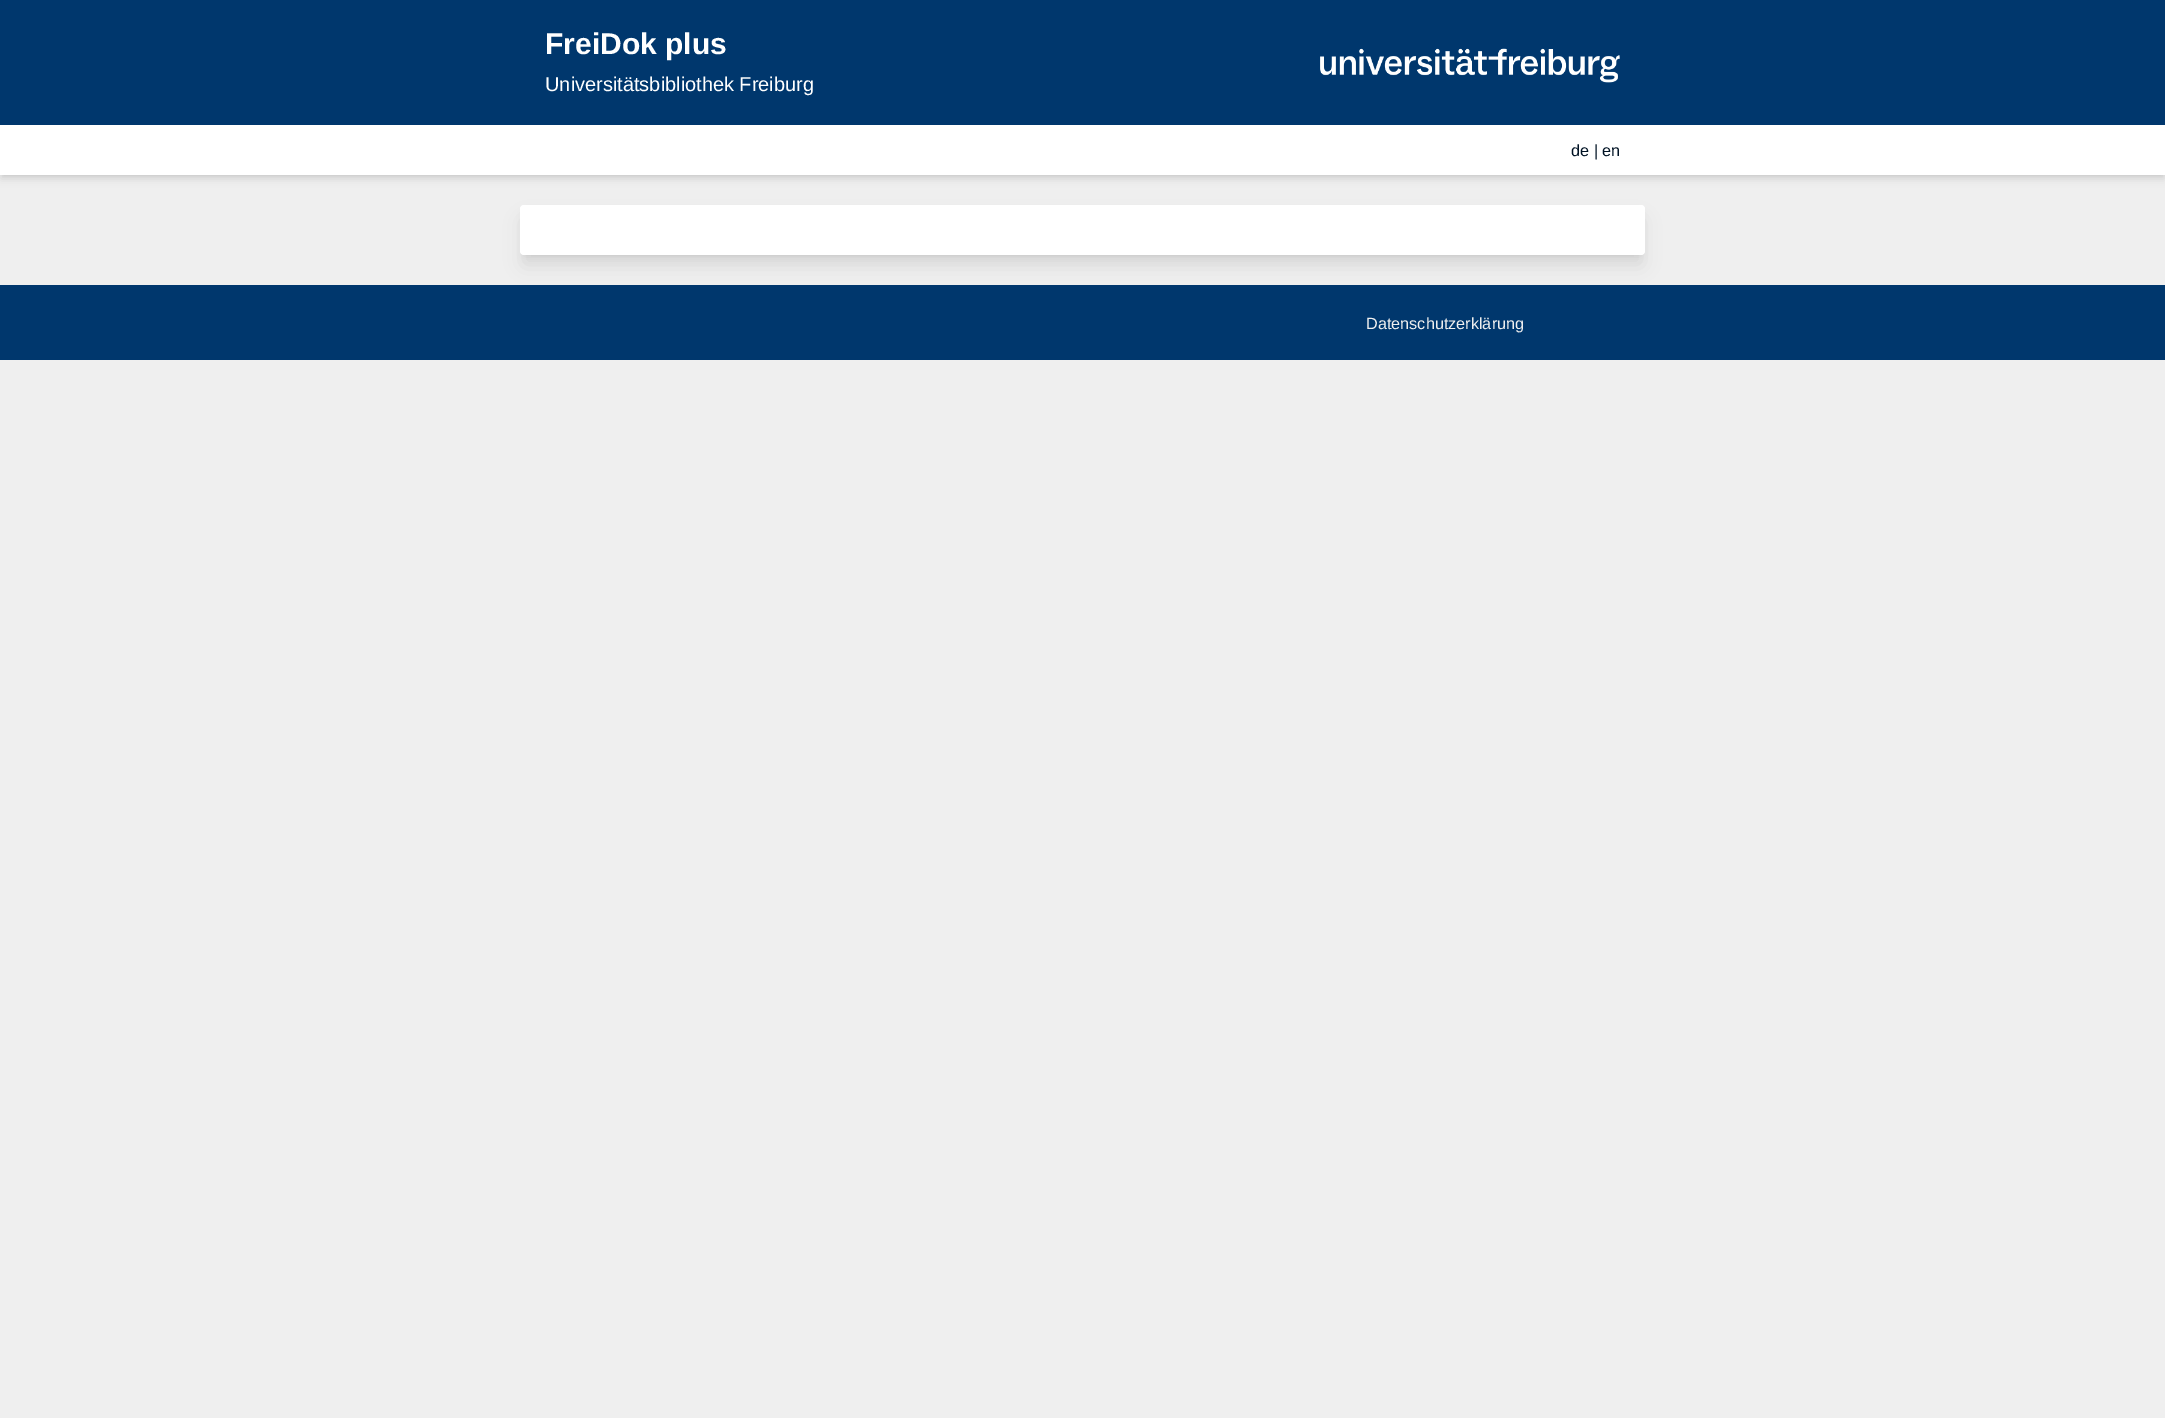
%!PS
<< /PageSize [2165 1418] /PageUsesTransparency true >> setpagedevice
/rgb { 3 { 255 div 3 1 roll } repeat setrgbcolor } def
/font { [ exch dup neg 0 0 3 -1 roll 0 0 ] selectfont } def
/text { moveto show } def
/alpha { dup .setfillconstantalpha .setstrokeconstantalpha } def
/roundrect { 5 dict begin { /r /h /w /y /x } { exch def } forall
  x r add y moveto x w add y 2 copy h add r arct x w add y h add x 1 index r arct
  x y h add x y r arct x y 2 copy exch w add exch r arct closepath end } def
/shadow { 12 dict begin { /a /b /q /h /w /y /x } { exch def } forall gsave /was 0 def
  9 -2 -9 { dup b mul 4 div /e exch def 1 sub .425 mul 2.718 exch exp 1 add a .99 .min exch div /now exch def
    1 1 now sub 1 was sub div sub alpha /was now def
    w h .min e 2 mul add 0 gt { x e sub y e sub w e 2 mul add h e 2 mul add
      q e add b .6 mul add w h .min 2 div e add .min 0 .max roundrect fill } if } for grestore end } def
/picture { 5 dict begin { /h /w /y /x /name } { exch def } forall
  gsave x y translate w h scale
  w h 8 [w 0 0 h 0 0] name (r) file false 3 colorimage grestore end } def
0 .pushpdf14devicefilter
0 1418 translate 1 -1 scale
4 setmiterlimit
239 239 239 rgb
0 0 2165 1418 rectfill
0 55 109 rgb
0 0 2165 125 rectfill
(img_01.rgb) 1320 48 300 35 picture
0 0 0 rgb
3 130 2160 45 0 2.5 0.1 shadow
1 131 2163 48 0 4 0.1 shadow
255 255 255 rgb
0 125 2165 50 rectfill
0 0 0 rgb
525 215 1115 40 0 4 0.1 shadow
0 55 109 rgb
0 285 2165 75 rectfill
0 0 0 rgb
524 221 1117 43 0 9.5 0.1 shadow
255 255 255 rgb
520 205 1125 50 4 roundrect fill
/LiberationSans-Bold 30 font
(FreiDok plus) 545 54 text
/LiberationSans-Regular 20 font
(Universitätsbibliothek Freiburg) 545 91 text
/LiberationSans-Regular 16.25 font
0 18 36 rgb
(de | en) 1571 156 text
239 239 239 rgb
(Datenschutzerklärung) 1366 329 text
.poppdf14devicefilter showpage
